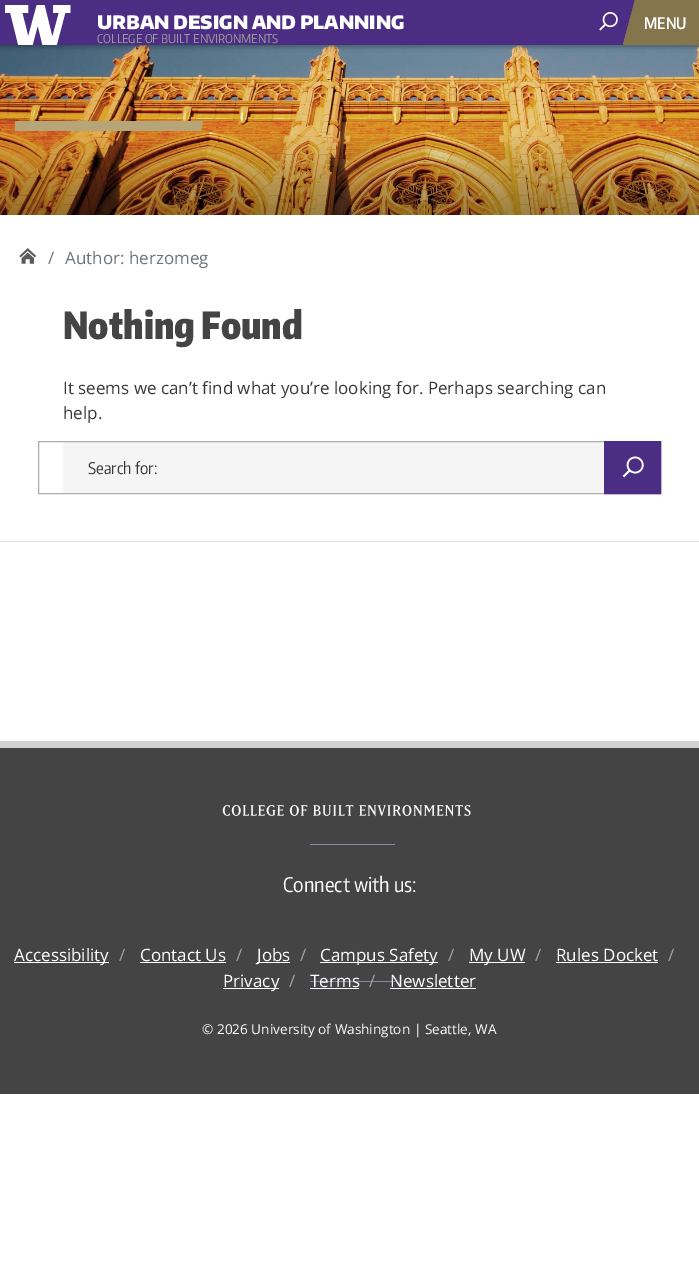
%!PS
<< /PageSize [699 1281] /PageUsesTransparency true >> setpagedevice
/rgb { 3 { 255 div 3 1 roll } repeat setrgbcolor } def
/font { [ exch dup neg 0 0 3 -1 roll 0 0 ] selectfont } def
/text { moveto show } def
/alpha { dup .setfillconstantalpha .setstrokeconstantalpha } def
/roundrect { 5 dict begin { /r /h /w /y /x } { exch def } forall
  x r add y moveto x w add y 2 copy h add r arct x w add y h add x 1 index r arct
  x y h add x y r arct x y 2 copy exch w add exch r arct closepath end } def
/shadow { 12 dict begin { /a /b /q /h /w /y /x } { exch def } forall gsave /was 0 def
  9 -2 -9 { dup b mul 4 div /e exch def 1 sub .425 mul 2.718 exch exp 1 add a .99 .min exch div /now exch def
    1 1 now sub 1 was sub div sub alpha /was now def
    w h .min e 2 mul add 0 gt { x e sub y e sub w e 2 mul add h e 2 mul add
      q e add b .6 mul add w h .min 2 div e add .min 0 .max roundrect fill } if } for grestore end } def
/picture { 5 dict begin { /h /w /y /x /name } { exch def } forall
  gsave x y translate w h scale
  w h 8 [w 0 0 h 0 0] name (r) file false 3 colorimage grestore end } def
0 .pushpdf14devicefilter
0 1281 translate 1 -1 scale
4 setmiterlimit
255 255 255 rgb
0 0 699 1281 rectfill
(img_03.rgb) 0 45 699 170 picture
0 0 0 rgb
0 2 699 45 0 2.5 0.3 shadow
75 46 131 rgb
0 0 635 45 rectfill
(img_01.rgb) 5 5 66 40 picture
(img_02.rgb) 599 12 19 19 picture
133 117 77 rgb
638 0 61 45 rectfill
635 0 moveto 15 0 rlineto -12 45 rlineto -15 0 rlineto closepath fill
635 0 moveto 1 0 rlineto -12 45 rlineto -1 0 rlineto closepath fill
gsave
15 121 669 10 rectclip
183 165 122 rgb
11 121 moveto 192 0 rlineto -2 10 rlineto -192 0 rlineto closepath fill
grestore
(img_04.rgb) 19 248 17 16 picture
245 245 245 rgb
63 442 573 51 3 roundrect fill
173 173 173 rgb
38.5 441.5 622 52 rectstroke
75 46 131 rgb
605 442 55 51 rectfill
(img_05.rgb) 622 456 22 22 picture
604.5 441.5 56 52 rectstroke
222 226 230 rgb
0 541 699 1 rectfill
68 68 68 rgb
0 748 699 346 rectfill
209 209 209 rgb
0 741 699 7 rectfill
(img_06.rgb) 222 805 249 12 picture
145 132 170 rgb
310 844 85 1 rectfill
310 981 85 1 rectfill
255 255 255 rgb
14 962 95 1 rectfill
140 962 86 1 rectfill
257 962 33 1 rectfill
320 962 118 1 rectfill
469 962 56 1 rectfill
556 962 102 1 rectfill
223 988 56 1 rectfill
310 988 49 1 rectfill
390 988 86 1 rectfill
/EncodeSans-Black 18.4 font
(URBAN DESIGN AND PLANNING) 97 29 text
/EncodeSansCondensed-Regular 12 font
156 156 156 rgb
(COLLEGE OF BUILT ENVIRONMENTS) 97 43 text
/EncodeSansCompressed-SemiBold 16 font
255 255 255 rgb
(MENU) 644 29 text
/OpenSans-Regular 17 font
108 117 125 rgb
(/) 48 264 text
(Author: herzomeg) 65 264 text
/EncodeSansCompressed-Black 37 font
68 68 68 rgb
(Nothing Found) 63 339 text
/OpenSans-Regular 17 font
55 58 60 rgb
(It seems we can’t find what you’re looking for. Perhaps searching can) 63 394 text
(help.) 63 419 text
/EncodeSansCondensed-Regular 16 font
(Search for:) 88 474 text
/EncodeSansCondensed-Regular 20 font
255 255 255 rgb
(Connect with us:) 283 892 text
/OpenSans-Regular 17 font
(Accessibility) 14 961 text
162 162 162 rgb
(/) 119 961 text
255 255 255 rgb
(Contact Us) 140 961 text
162 162 162 rgb
(/) 236 961 text
255 255 255 rgb
(Jobs) 257 961 text
162 162 162 rgb
(/) 300 961 text
255 255 255 rgb
(Campus Safety) 320 961 text
162 162 162 rgb
(/) 448 961 text
255 255 255 rgb
(My UW) 469 961 text
162 162 162 rgb
(/) 535 961 text
255 255 255 rgb
(Rules Docket) 556 961 text
162 162 162 rgb
(/) 668 961 text
255 255 255 rgb
(Privacy) 223 987 text
162 162 162 rgb
(/) 289 987 text
255 255 255 rgb
(Terms) 310 987 text
162 162 162 rgb
(/) 369 987 text
255 255 255 rgb
(Newsletter) 390 987 text
/OpenSans-Regular 13.6 font
(© 2026 University of Washington | Seattle, WA) 202 1034 text
.poppdf14devicefilter showpage
